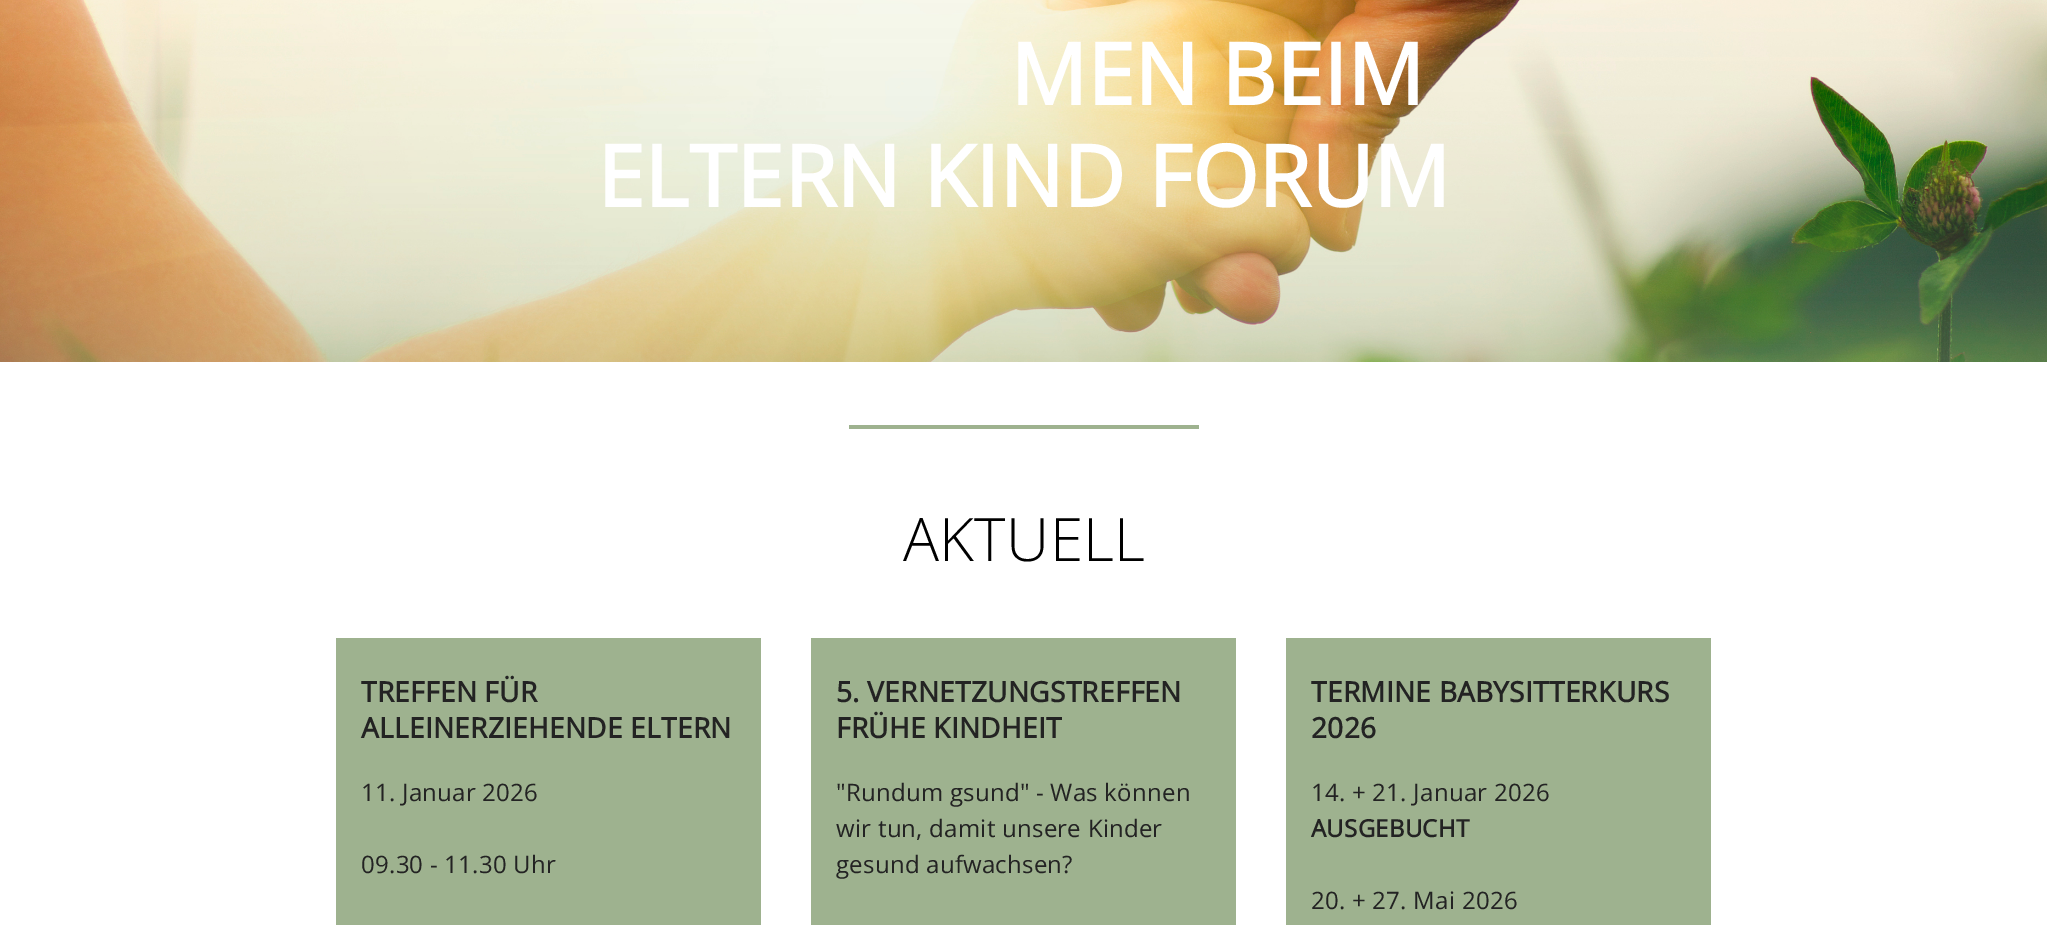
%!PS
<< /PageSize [2047 925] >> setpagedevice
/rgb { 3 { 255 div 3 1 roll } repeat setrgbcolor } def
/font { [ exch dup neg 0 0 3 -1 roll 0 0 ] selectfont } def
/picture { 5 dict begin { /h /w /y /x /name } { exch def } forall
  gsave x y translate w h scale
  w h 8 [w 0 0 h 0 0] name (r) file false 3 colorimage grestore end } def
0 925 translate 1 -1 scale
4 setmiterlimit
255 255 255 rgb
0 0 2047 925 rectfill
(img_01.rgb) 0 0 2047 362 picture
158 178 143 rgb
849 425 350 4 rectfill
336 638 425 287 rectfill
811 638 425 287 rectfill
1286 638 425 287 rectfill
/OpenSans-Bold 85 font
255 255 255 rgb
1010 105 moveto 0.25 0 (MEN BEIM) ashow
597 207 moveto 0.25 0 (ELTERN KIND FORUM) ashow
/OpenSans-Light 60 font
0 0 0 rgb
903 561 moveto 0.25 0 (AKTUELL) ashow
/OpenSans-Bold 28.1 font
35 35 35 rgb
361 702 moveto 0.25 0 (TREFFEN FÜR) ashow
361 738 moveto 0.25 0 (ALLEINERZIEHENDE ELTERN) ashow
/OpenSans-Regular 24 font
361 801 moveto 0.25 0 (11. Januar 2026) ashow
361 873 moveto 0.25 0 (09.30 - 11.30 Uhr) ashow
/OpenSans-Bold 28.1 font
836 702 moveto 0.25 0 (5. VERNETZUNGSTREFFEN) ashow
836 738 moveto 0.25 0 (FRÜHE KINDHEIT) ashow
/OpenSans-Regular 24 font
836 801 moveto 0.25 0 ("Rundum gsund" - Was können) ashow
836 837 moveto 0.25 0 (wir tun, damit unsere Kinder) ashow
836 873 moveto 0.25 0 (gesund aufwachsen?) ashow
/OpenSans-Bold 28.1 font
1311 702 moveto 0.25 0 (TERMINE BABYSITTERKURS) ashow
1311 738 moveto 0.25 0 (2026) ashow
/OpenSans-Regular 24 font
1311 801 moveto 0.25 0 (14. + 21. Januar 2026) ashow
/OpenSans-Bold 24 font
1311 837 moveto 0.25 0 (AUSGEBUCHT) ashow
/OpenSans-Regular 24 font
1311 909 moveto 0.25 0 (20. + 27. Mai 2026) ashow
showpage
